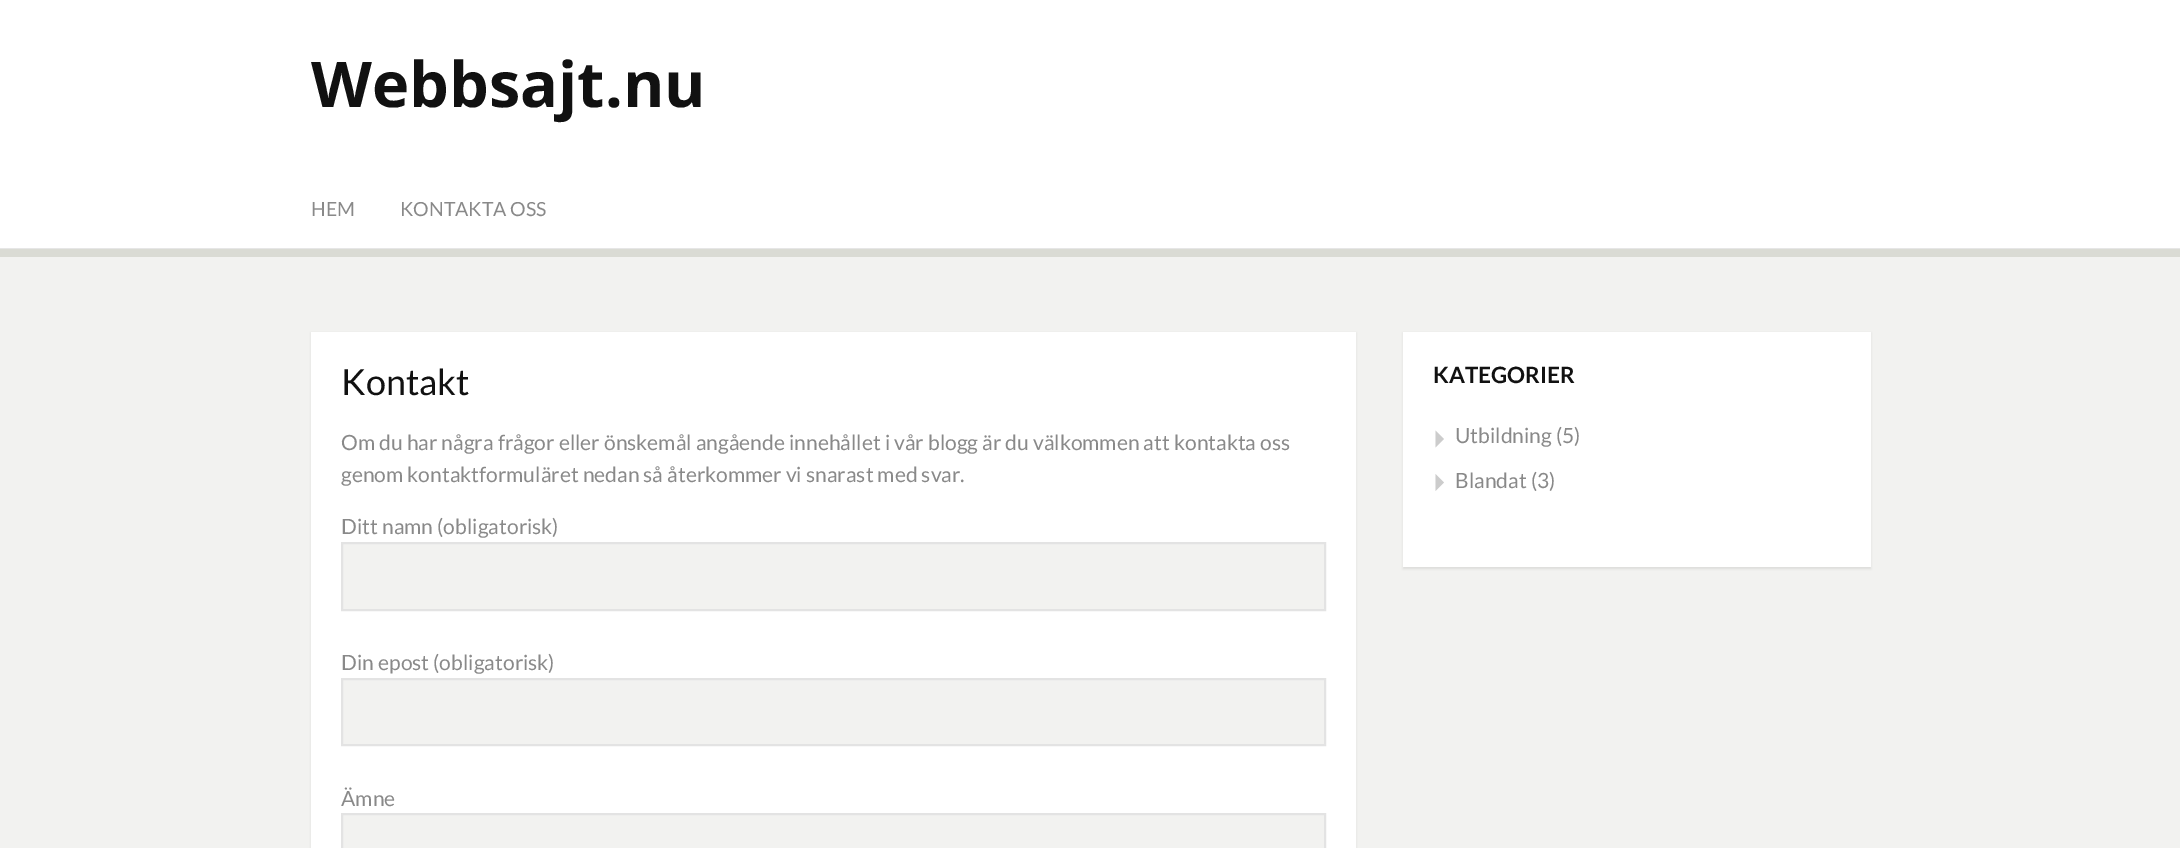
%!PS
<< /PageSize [2180 848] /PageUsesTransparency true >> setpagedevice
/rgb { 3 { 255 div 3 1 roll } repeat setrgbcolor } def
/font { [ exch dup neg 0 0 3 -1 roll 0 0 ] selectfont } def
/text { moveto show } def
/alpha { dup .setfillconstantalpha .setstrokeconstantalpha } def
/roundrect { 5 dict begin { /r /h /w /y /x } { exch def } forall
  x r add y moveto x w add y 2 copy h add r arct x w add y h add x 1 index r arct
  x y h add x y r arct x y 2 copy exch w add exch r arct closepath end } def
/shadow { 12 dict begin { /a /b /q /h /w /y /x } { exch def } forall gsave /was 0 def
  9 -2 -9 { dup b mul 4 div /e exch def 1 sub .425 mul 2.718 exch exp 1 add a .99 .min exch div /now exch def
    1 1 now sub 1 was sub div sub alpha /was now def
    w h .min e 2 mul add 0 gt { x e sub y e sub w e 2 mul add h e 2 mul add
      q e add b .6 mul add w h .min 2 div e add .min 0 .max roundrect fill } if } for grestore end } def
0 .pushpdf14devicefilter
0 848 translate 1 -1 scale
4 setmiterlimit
255 255 255 rgb
0 0 2180 848 rectfill
230 230 230 rgb
0 248 2180 1 rectfill
242 242 240 rgb
0 257 2180 591 rectfill
218 219 212 rgb
0 249 2180 8 rectfill
0 0 0 rgb
311 333 1045 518 0 1 0.08 shadow
255 255 255 rgb
311 332 1045 516 rectfill
242 242 240 rgb
342 543 moveto 983 0 rlineto 0 67 rlineto -983 0 rlineto closepath gsave fill grestore
227 227 227 rgb
2 setlinewidth
stroke
242 242 240 rgb
342 679 moveto 983 0 rlineto 0 66 rlineto -983 0 rlineto closepath gsave fill grestore
227 227 227 rgb
stroke
242 242 240 rgb
342 814 moveto 983 0 rlineto 0 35 rlineto -983 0 rlineto closepath gsave fill grestore
227 227 227 rgb
stroke
0 0 0 rgb
1403 333 468 236 0 1 0.08 shadow
255 255 255 rgb
1403 332 468 235 rectfill
204 204 204 rgb
1435.5 447.5 moveto 0 -17 rlineto 8.5 8.5 rlineto closepath fill
1435.5 491 moveto 0 -17 rlineto 8.5 8.5 rlineto closepath fill
/OpenSans-Bold 63 font
17 17 17 rgb
(Webbsajt.nu) 311 107 text
/Lato-Regular 19.5 font
137 137 137 rgb
(HEM) 311 216 text
(KONTAKTA OSS) 400 216 text
/Lato-Regular 36 font
17 17 17 rgb
(Kontakt) 341 395 text
/Lato-Regular 21 font
137 137 137 rgb
(Om du har några frågor eller önskemål angående innehållet i vår blogg är du välkommen att kontakta oss) 341 450 text
(genom kontaktformuläret nedan så återkommer vi snarast med svar.) 341 482 text
(Ditt namn \(obligatorisk\)) 341 534 text
(Din epost \(obligatorisk\)) 341 670 text
(Ämne) 341 806 text
/Lato-Bold 22.5 font
17 17 17 rgb
(KATEGORIER) 1433 383 text
/Lato-Regular 21 font
137 137 137 rgb
(Utbildning \(5\)) 1455 443 text
(Blandat \(3\)) 1455 488 text
.poppdf14devicefilter showpage
